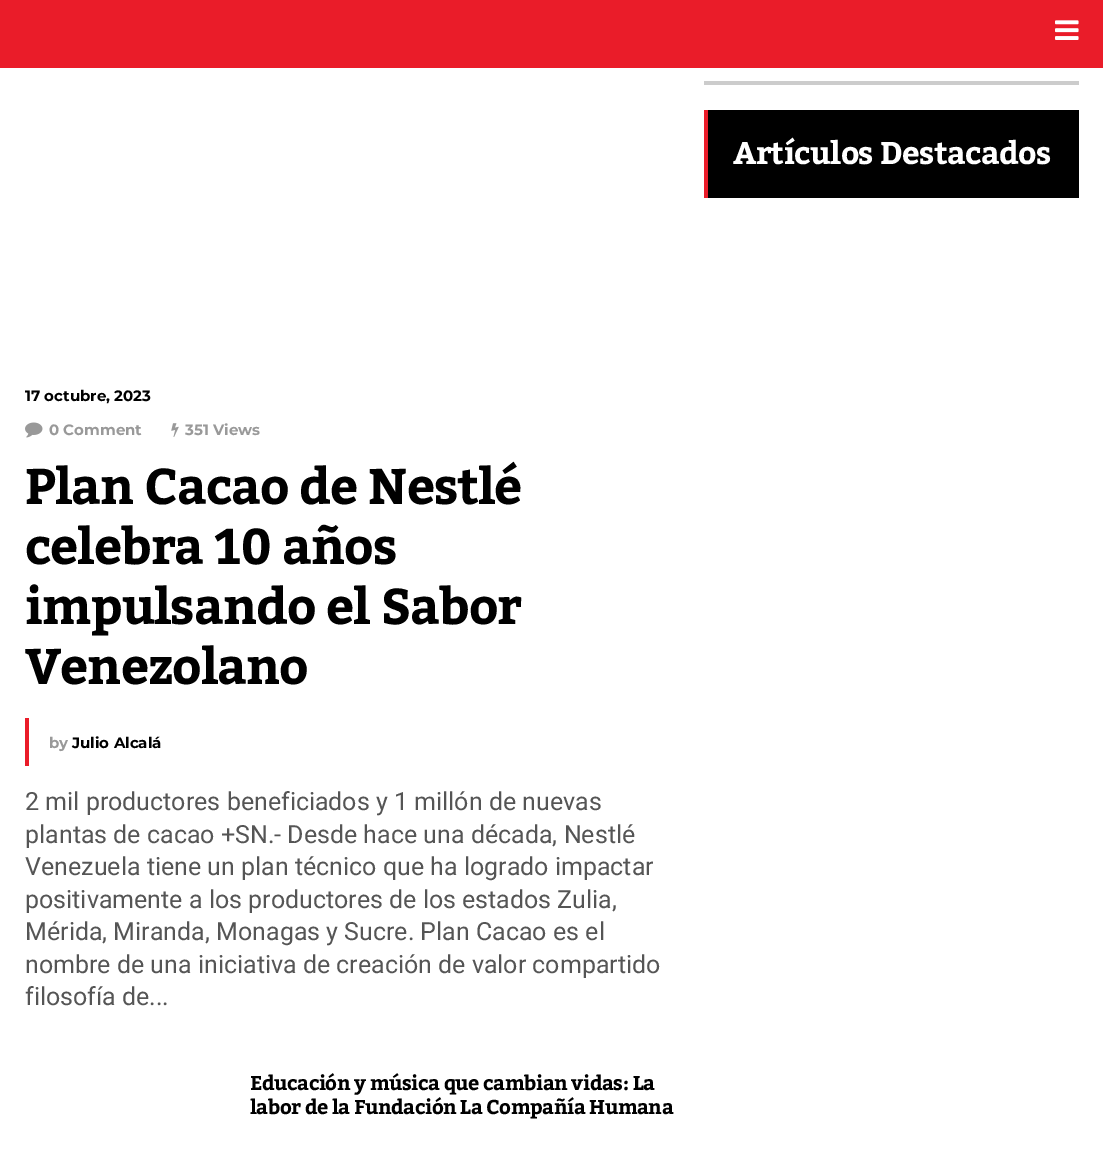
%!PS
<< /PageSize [1103 1155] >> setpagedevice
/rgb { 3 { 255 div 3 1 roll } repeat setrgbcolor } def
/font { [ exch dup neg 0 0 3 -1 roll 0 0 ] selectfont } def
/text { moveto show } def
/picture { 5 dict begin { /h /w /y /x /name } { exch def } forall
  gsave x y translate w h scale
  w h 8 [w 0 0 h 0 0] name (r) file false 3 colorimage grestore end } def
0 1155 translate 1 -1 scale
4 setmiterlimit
255 255 255 rgb
0 0 1103 1155 rectfill
234 28 41 rgb
0 0 1103 68 rectfill
(img_01.rgb) 1055 20 24 20 picture
204 204 204 rgb
704 81 375 4 rectfill
0 0 0 rgb
708 110 371 88 rectfill
234 28 41 rgb
704 110 4 88 rectfill
(img_02.rgb) 25 422 18 16 picture
(img_03.rgb) 171 423 8 14 picture
25 718 4 48 rectfill
/Kadwa-Bold 31.25 font
255 255 255 rgb
733 164 moveto -0.6 0 (Artículos Destacados) ashow
/Montserrat-Bold 15 font
0 0 0 rgb
(17 octubre, 2023) 25 401 text
153 153 153 rgb
(0 Comment) 49 435 text
(351 Views) 185 435 text
/Kadwa-Bold 50 font
0 0 0 rgb
25 504 moveto -1 0 (Plan Cacao de Nestlé) ashow
25 564 moveto -1 0 (celebra 10 años) ashow
25 624 moveto -1 0 (impulsando el Sabor) ashow
25 684 moveto -1 0 (Venezolano) ashow
/Montserrat-Bold 15 font
153 153 153 rgb
(by) 49 748 text
0 0 0 rgb
(Julio Alcalá) 72 748 text
/Roboto-Regular 25 font
85 85 85 rgb
(2 mil productores beneficiados y 1 millón de nuevas) 25 810 text
(plantas de cacao +SN.- Desde hace una década, Nestlé) 25 843 text
(Venezuela tiene un plan técnico que ha logrado impactar) 25 875 text
(positivamente a los productores de los estados Zulia,) 25 908 text
(Mérida, Miranda, Monagas y Sucre. Plan Cacao es el) 25 940 text
(nombre de una iniciativa de creación de valor compartido) 25 973 text
(filosofía de...) 25 1005 text
/Kadwa-Bold 20 font
0 0 0 rgb
250 1090 moveto -0.5 0 (Educación y música que cambian vidas: La) ashow
250 1114 moveto -0.5 0 (labor de la Fundación La Compañía Humana) ashow
showpage
